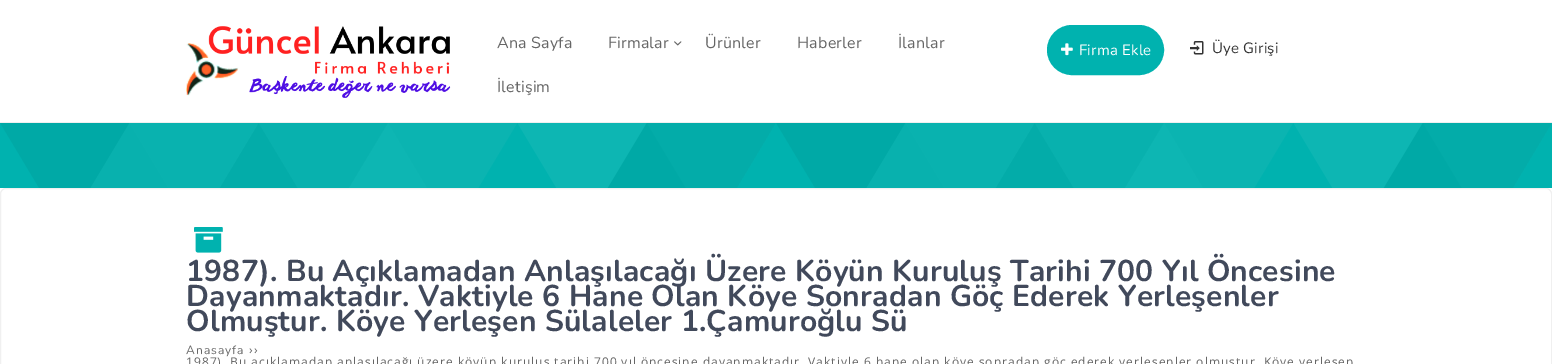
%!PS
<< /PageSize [1552 364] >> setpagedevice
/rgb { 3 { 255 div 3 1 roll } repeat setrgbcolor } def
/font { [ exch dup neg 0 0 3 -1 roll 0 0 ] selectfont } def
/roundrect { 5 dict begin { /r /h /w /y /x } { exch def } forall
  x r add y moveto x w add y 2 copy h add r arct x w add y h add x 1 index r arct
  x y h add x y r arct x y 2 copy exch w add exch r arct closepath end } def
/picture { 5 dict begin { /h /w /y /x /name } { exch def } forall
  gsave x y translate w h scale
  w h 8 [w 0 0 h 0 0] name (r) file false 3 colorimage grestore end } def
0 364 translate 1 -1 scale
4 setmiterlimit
255 255 255 rgb
0 0 1552 364 rectfill
239 239 239 rgb
0 122 1552 1 rectfill
(img_01.rgb) 186 26 265 72 picture
(img_02.rgb) 674 41 8 5 picture
0 178 175 rgb
1048 26 115 48 24 roundrect gsave fill grestore
2 setlinewidth
stroke
(img_03.rgb) 1061 43 12 13 picture
(img_04.rgb) 1190 41 14 14 picture
0 123 1552 65 rectfill
(img_05.rgb) 0 123 1551 65 picture
240 240 240 rgb
1 setlinewidth
0.5 188.5 1551 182 5.5 roundrect stroke
(img_06.rgb) 194 227 29 26 picture
/Nunito-Regular 16 font
102 102 102 rgb
497 48 moveto 0.2 0 (Ana Sayfa) ashow
608 48 moveto 0.2 0 (Firmalar) ashow
705 48 moveto 0.2 0 (Ürünler) ashow
797 48 moveto 0.2 0 (Haberler) ashow
898 48 moveto 0.2 0 (İlanlar) ashow
497 92 moveto 0.2 0 (İletişim) ashow
/Nunito-Regular 15 font
255 255 255 rgb
1079 55 moveto 0.2 0 (Firma Ekle) ashow
51 51 51 rgb
1212 53 moveto 0.2 0 (Üye Girişi) ashow
/Nunito-Bold 30 font
65 73 91 rgb
186 281 moveto 0.2 0 (1987\). Bu Açıklamadan Anlaşılacağı Üzere Köyün Kuruluş Tarihi 700 Yıl Öncesine) ashow
186 306 moveto 0.2 0 (Dayanmaktadır. Vaktiyle 6 Hane Olan Köye Sonradan Göç Ederek Yerleşenler) ashow
186 331 moveto 0.2 0 (Olmuştur. Köye Yerleşen Sülaleler 1.Çamuroğlu Sü) ashow
/Nunito-Regular 12 font
102 102 102 rgb
186 354 moveto 1 0 (Anasayfa) ashow
/OpenSans-Regular 12 font
249 354 moveto 1 0 (››) ashow
186 366 moveto 1 0 (1987\). Bu açıklamadan anlaşılacağı üzere köyün kuruluş tarihi 700 yıl öncesine dayanmaktadır. Vaktiyle 6 hane olan köye sonradan göç ederek yerleşenler olmuştur. Köye yerleşen) ashow
showpage
